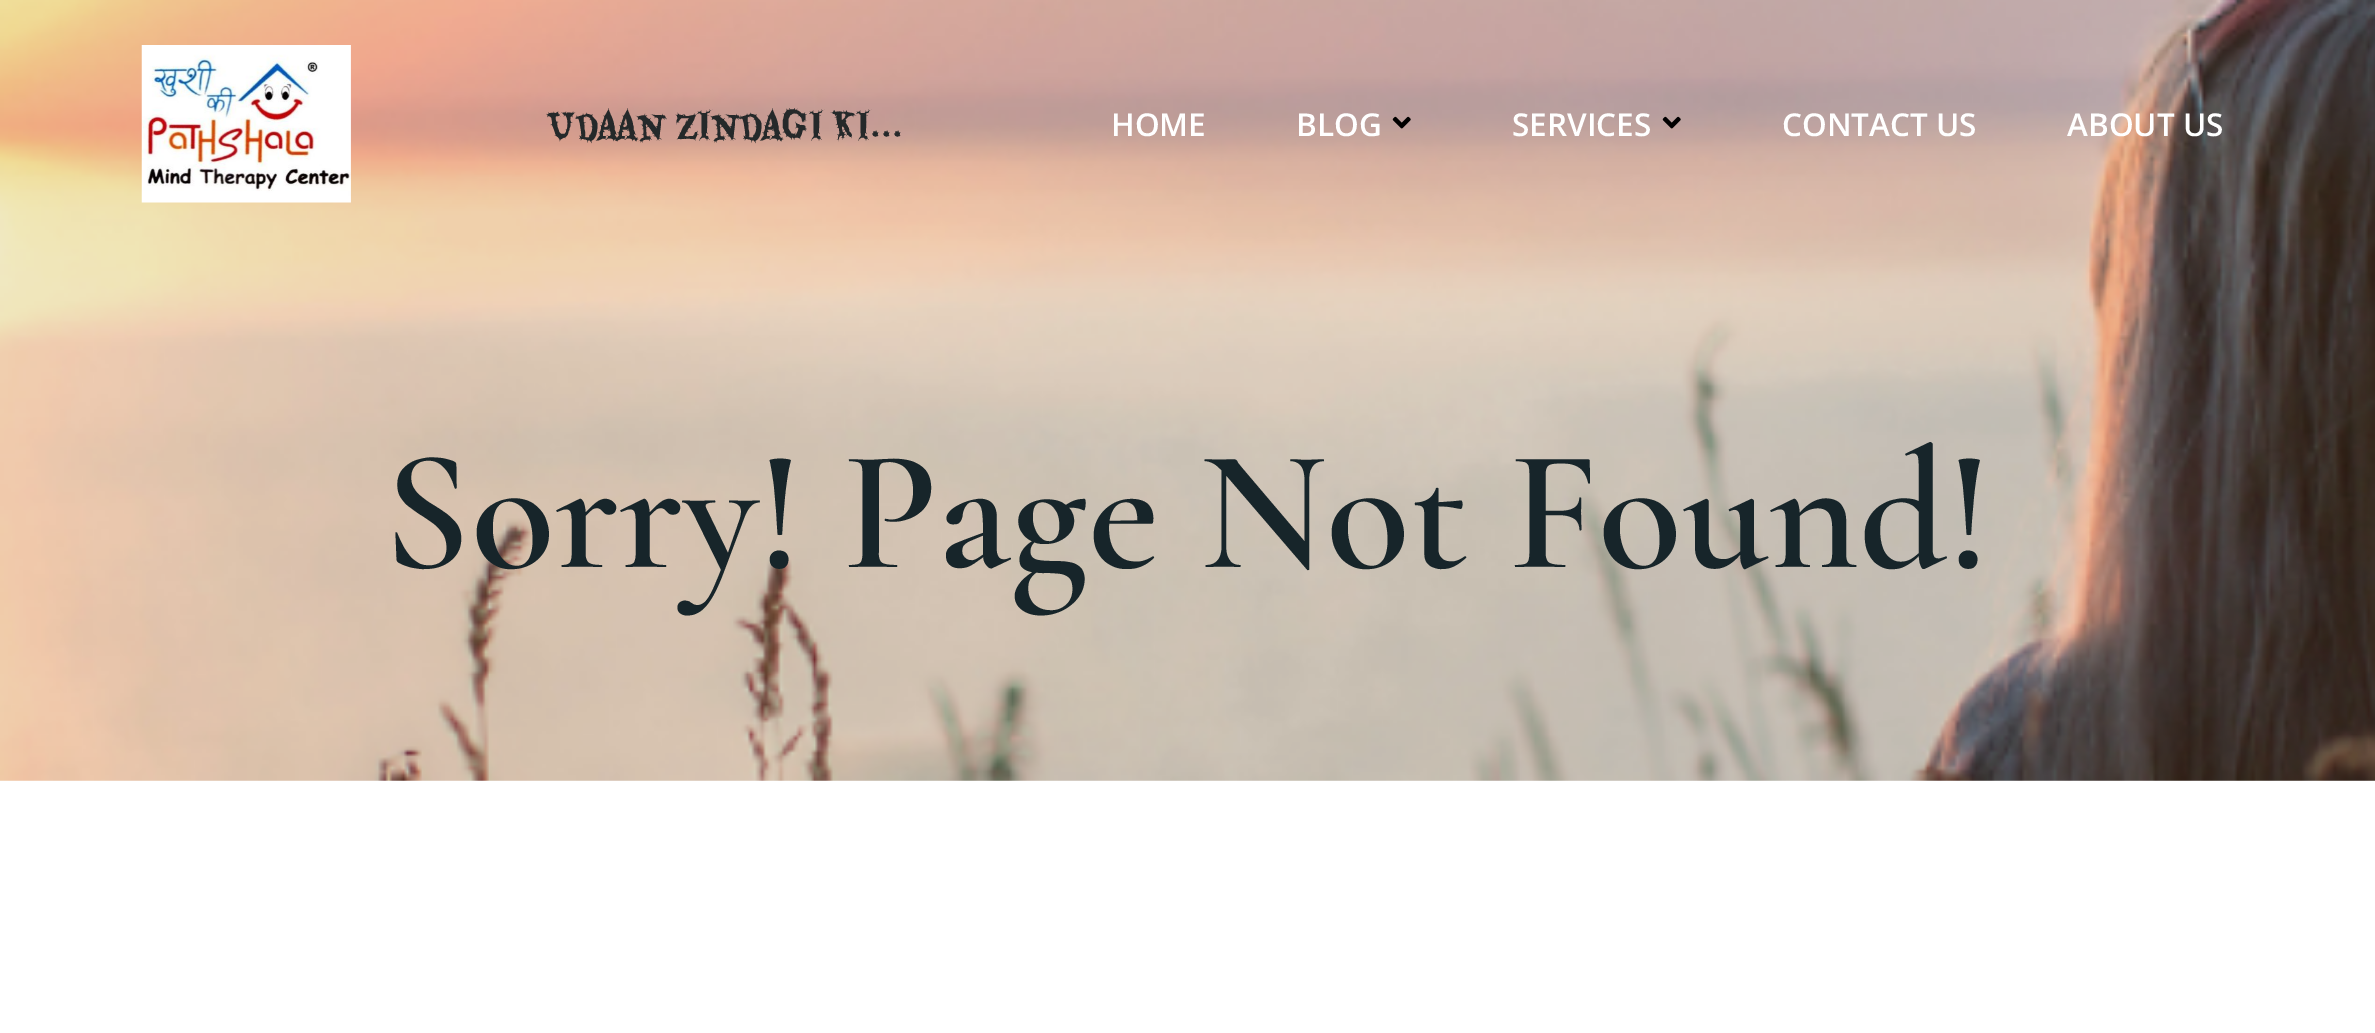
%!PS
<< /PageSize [2375 1033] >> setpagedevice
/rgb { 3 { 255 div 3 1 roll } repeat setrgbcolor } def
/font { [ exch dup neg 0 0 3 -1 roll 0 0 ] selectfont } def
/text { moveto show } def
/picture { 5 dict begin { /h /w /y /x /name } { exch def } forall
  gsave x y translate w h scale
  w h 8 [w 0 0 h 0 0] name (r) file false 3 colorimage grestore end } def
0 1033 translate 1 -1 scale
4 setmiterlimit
255 255 255 rgb
0 0 2375 1033 rectfill
(img_04.rgb) 0 0 2375 781 picture
(img_01.rgb) 141 45 210 158 picture
(img_02.rgb) 1392 116 19 13 picture
(img_03.rgb) 1662 116 19 13 picture
/Eater-Regular 36 font
37 41 42 rgb
(Udaan Zindagi Ki...) 547 140 text
/OpenSans-SemiBold 31.5 font
255 255 255 rgb
(HOME) 1111 136 text
(BLOG) 1296 136 text
(SERVICES) 1512 136 text
(CONTACT US) 1782 136 text
(ABOUT US) 2067 136 text
/CormorantGaramond-SemiBold 172.75 font
23 37 42 rgb
(Sorry! Page Not Found!) 383 567 text
showpage
